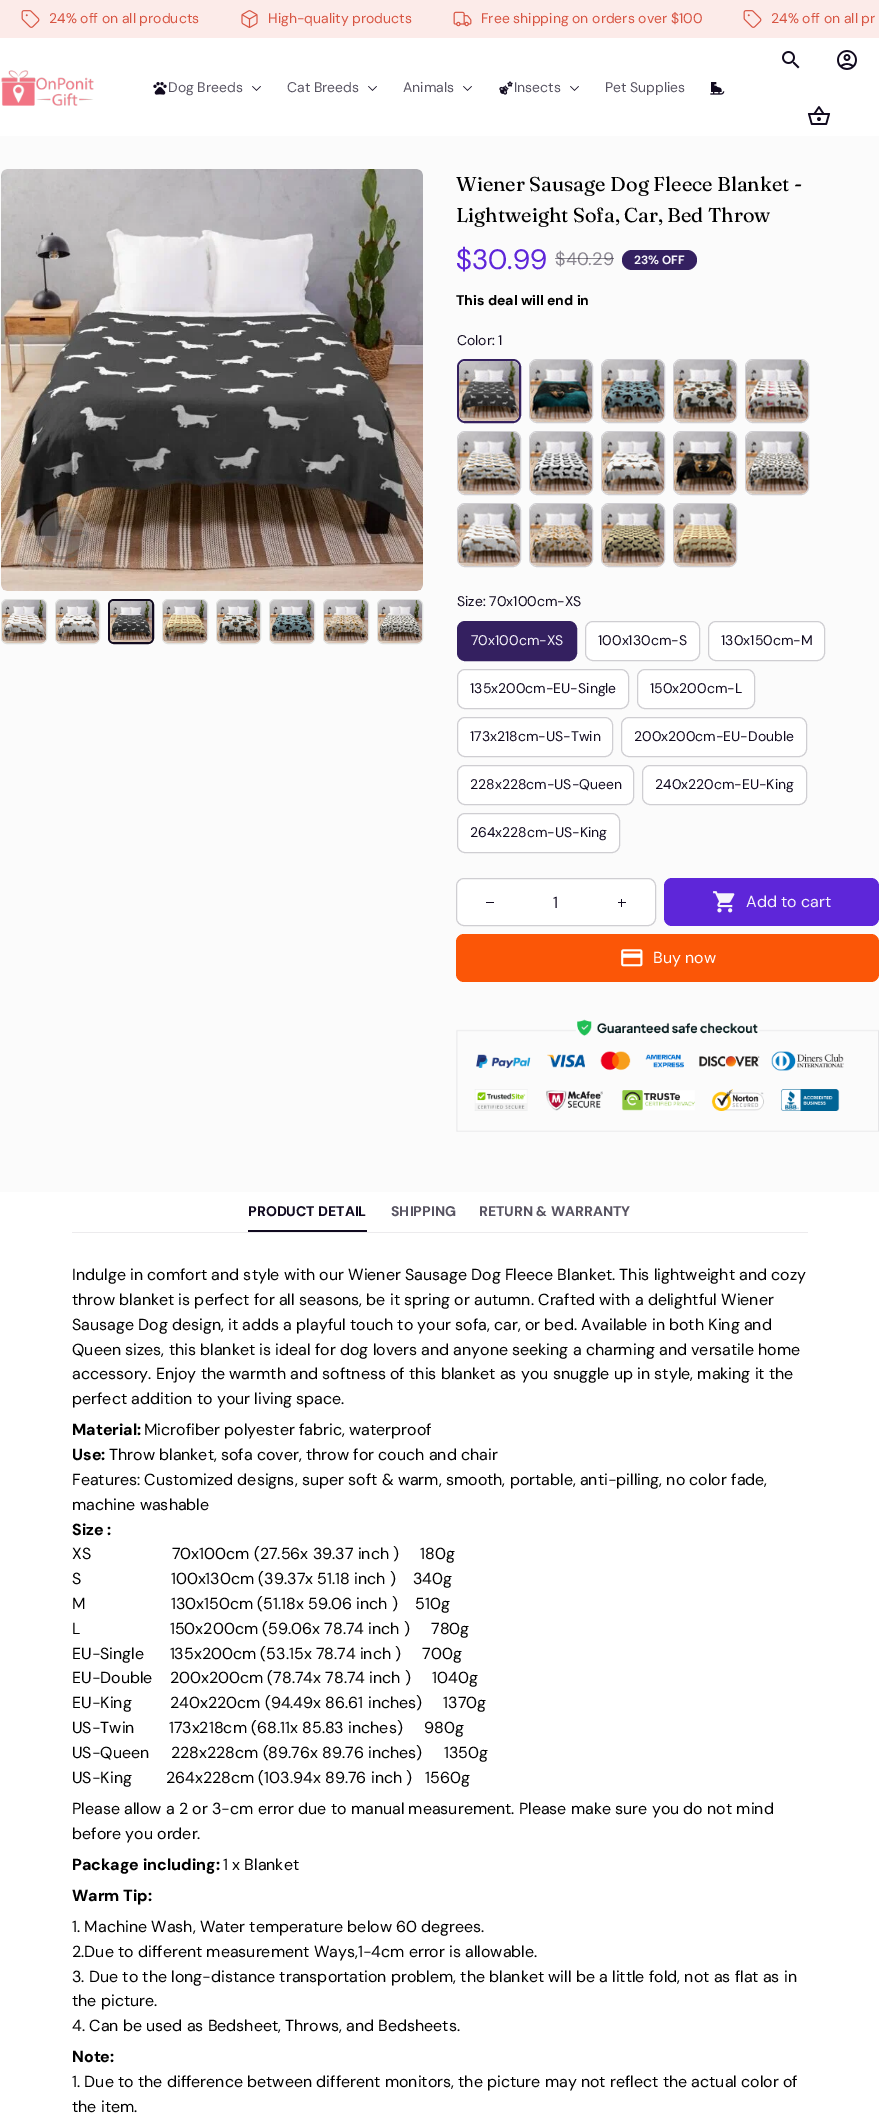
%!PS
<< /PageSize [879 2113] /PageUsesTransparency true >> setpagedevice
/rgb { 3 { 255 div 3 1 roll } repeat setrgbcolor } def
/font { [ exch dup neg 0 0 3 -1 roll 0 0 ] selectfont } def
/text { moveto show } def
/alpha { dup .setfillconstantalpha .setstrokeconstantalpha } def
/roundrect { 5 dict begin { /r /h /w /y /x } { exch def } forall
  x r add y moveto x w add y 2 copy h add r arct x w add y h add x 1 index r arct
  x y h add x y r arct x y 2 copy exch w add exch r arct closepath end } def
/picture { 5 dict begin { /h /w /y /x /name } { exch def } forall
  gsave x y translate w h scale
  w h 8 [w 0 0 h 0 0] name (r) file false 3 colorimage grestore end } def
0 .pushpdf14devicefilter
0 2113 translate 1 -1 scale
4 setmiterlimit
255 255 255 rgb
0 0 879 2113 rectfill
252 235 233 rgb
0 0 879 38 rectfill
(img_01.rgb) 21 10 19 18 picture
(img_02.rgb) 241 10 17 18 picture
(img_03.rgb) 453 11 19 16 picture
(img_01.rgb) 743 10 19 18 picture
(img_04.rgb) 1 70 93 36 picture
(img_05.rgb) 153 82 14 13 picture
(img_06.rgb) 252 86 9 5 picture
(img_06.rgb) 368 86 9 5 picture
(img_06.rgb) 463 86 9 5 picture
(img_07.rgb) 499 81 14 14 picture
(img_06.rgb) 570 86 9 5 picture
(img_08.rgb) 710 82 15 13 picture
(img_09.rgb) 782 51 18 18 picture
(img_10.rgb) 837 50 20 20 picture
(img_11.rgb) 807 106 24 19 picture
251 251 251 rgb
0 136 879 1056 rectfill
(img_12.rgb) 1 169 422 422 picture
222 224 222 rgb
1.5 599.5 45 44 5.5 roundrect stroke
(img_13.rgb) 2 600 44 43 picture
55.5 599.5 44 44 5.5 roundrect stroke
(img_14.rgb) 56 600 43 43 picture
17 10 31 rgb
2 setlinewidth
109 600 44 43 5 roundrect stroke
(img_15.rgb) 110 601 42 41 picture
222 224 222 rgb
1 setlinewidth
162.5 599.5 45 44 5.5 roundrect stroke
(img_16.rgb) 163 600 44 43 picture
216.5 599.5 44 44 5.5 roundrect stroke
(img_17.rgb) 217 600 43 43 picture
269.5 599.5 45 44 5.5 roundrect stroke
(img_18.rgb) 270 600 44 43 picture
323.5 599.5 45 44 5.5 roundrect stroke
(img_19.rgb) 324 600 44 43 picture
377.5 599.5 45 44 5.5 roundrect stroke
(img_20.rgb) 378 600 44 43 picture
52 32 96 rgb
622 250 75 20 10 roundrect fill
255 255 255 rgb
458 360 62 62 7 roundrect gsave fill grestore
52 32 96 rgb
2 setlinewidth
stroke
(img_21.rgb) 459 361 60 60 picture
255 255 255 rgb
529.5 359.5 63 63 7.5 roundrect gsave fill grestore
207 206 210 rgb
1 setlinewidth
stroke
(img_22.rgb) 530 360 62 62 picture
255 255 255 rgb
601.5 359.5 63 63 7.5 roundrect gsave fill grestore
207 206 210 rgb
stroke
(img_23.rgb) 602 360 62 62 picture
255 255 255 rgb
673.5 359.5 63 63 7.5 roundrect gsave fill grestore
207 206 210 rgb
stroke
(img_24.rgb) 674 360 62 62 picture
255 255 255 rgb
745.5 359.5 63 63 7.5 roundrect gsave fill grestore
207 206 210 rgb
stroke
(img_25.rgb) 746 360 62 62 picture
255 255 255 rgb
457.5 431.5 63 63 7.5 roundrect gsave fill grestore
207 206 210 rgb
stroke
(img_26.rgb) 458 432 62 62 picture
255 255 255 rgb
529.5 431.5 63 63 7.5 roundrect gsave fill grestore
207 206 210 rgb
stroke
(img_27.rgb) 530 432 62 62 picture
255 255 255 rgb
601.5 431.5 63 63 7.5 roundrect gsave fill grestore
207 206 210 rgb
stroke
(img_28.rgb) 602 432 62 62 picture
255 255 255 rgb
673.5 431.5 63 63 7.5 roundrect gsave fill grestore
207 206 210 rgb
stroke
(img_29.rgb) 674 432 62 62 picture
255 255 255 rgb
745.5 431.5 63 63 7.5 roundrect gsave fill grestore
207 206 210 rgb
stroke
(img_30.rgb) 746 432 62 62 picture
255 255 255 rgb
457.5 503.5 63 63 7.5 roundrect gsave fill grestore
207 206 210 rgb
stroke
(img_31.rgb) 458 504 62 62 picture
255 255 255 rgb
529.5 503.5 63 63 7.5 roundrect gsave fill grestore
207 206 210 rgb
stroke
(img_32.rgb) 530 504 62 62 picture
255 255 255 rgb
601.5 503.5 63 63 7.5 roundrect gsave fill grestore
207 206 210 rgb
stroke
(img_33.rgb) 602 504 62 62 picture
255 255 255 rgb
673.5 503.5 63 63 7.5 roundrect gsave fill grestore
207 206 210 rgb
stroke
(img_34.rgb) 674 504 62 62 picture
52 32 96 rgb
458 622 118 38 7 roundrect gsave fill grestore
2 setlinewidth
stroke
255 255 255 rgb
585.5 621.5 114 39 7.5 roundrect gsave fill grestore
207 206 210 rgb
1 setlinewidth
stroke
255 255 255 rgb
708.5 621.5 116 39 7.5 roundrect gsave fill grestore
207 206 210 rgb
stroke
255 255 255 rgb
457.5 669.5 171 39 7.5 roundrect gsave fill grestore
207 206 210 rgb
stroke
255 255 255 rgb
637.5 669.5 117 39 7.5 roundrect gsave fill grestore
207 206 210 rgb
stroke
255 255 255 rgb
457.5 717.5 155 39 7.5 roundrect gsave fill grestore
207 206 210 rgb
stroke
255 255 255 rgb
621.5 717.5 185 39 7.5 roundrect gsave fill grestore
207 206 210 rgb
stroke
255 255 255 rgb
457.5 765.5 176 39 7.5 roundrect gsave fill grestore
207 206 210 rgb
stroke
255 255 255 rgb
642.5 765.5 164 39 7.5 roundrect gsave fill grestore
207 206 210 rgb
stroke
255 255 255 rgb
457.5 813.5 162 39 7.5 roundrect gsave fill grestore
207 206 210 rgb
stroke
255 255 255 rgb
456.5 878.5 199 47 7.5 roundrect gsave fill grestore
207 206 210 rgb
stroke
17 10 31 rgb
486 902 8 1 rectfill
618 902 8 1 rectfill
621 899 1 8 rectfill
94 38 217 rgb
664 878 215 48 8 roundrect fill
(img_35.rgb) 713 891 22 22 picture
251 86 7 rgb
456 934 423 48 8 roundrect fill
(img_36.rgb) 621 949 22 18 picture
(img_37.rgb) 456 1019 423 113 picture
gsave
248 1192 119 40 rectclip
17 10 31 rgb
149 1093 moveto 317 0 rlineto 0 238 rlineto -317 0 rlineto closepath 248 1186 moveto 119 0 rlineto 1 0 2 1 2 2 rcurveto 0 40 rlineto 0 1 -1 2 -2 2 rcurveto -119 0 rlineto -1 0 -2 -1 -2 -2 rcurveto 0 -40 rlineto 0 -1 1 -2 2 -2 rcurveto closepath eofill
grestore
236 235 237 rgb
72 1232 736 1 rectfill
/DMSans-Regular 14 font
215 84 66 rgb
(24% off on all products) 49 23 text
(High-quality products) 268 23 text
(Free shipping on orders over $100) 481 23 text
(24% off on all pr) 771 23 text
88 84 98 rgb
(Dog Breeds) 168 92 text
(Cat Breeds) 287 92 text
(Animals) 403 92 text
(Insects) 514 92 text
(Pet Supplies) 605 92 text
/Fraunces-Regular 20 font
0 0 0 rgb
(Wiener Sausage Dog Fleece Blanket -) 456 191 text
(Lightweight Sofa, Car, Bed Throw) 456 222 text
/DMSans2-Regular 28 font
94 38 217 rgb
($30.99) 456 269 text
/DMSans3-Regular 18 font
139 135 145 rgb
($40.29) 555 265 text
0.48 alpha
17 10 31 rgb
555 258 59 1 rectfill
/DMSans-Bold 12 font
1 alpha
246 244 251 rgb
(23% OFF) 634 264 text
/DMSans-ExtraBold 14 font
0 0 0 rgb
(This deal will end in) 456 305 text
/DMSans-Regular 14 font
17 10 31 rgb
(Color: 1) 457 345 text
(Size: 70x100cm-XS) 457 606 text
246 244 251 rgb
(70x100cm-XS) 471 645 text
17 10 31 rgb
(100x130cm-S) 598 645 text
(130x150cm-M) 721 645 text
(135x200cm-EU-Single) 470 693 text
(150x200cm-L) 650 693 text
(173x218cm-US-Twin) 470 741 text
(200x200cm-EU-Double) 634 741 text
(228x228cm-US-Queen) 470 789 text
(240x220cm-EU-King) 655 789 text
(264x228cm-US-King) 470 837 text
/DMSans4-Regular 16 font
(1) 553 908 text
246 244 251 rgb
(Add to cart) 746 907 text
255 255 255 rgb
(Buy now) 653 963 text
/DMSans-ExtraBold 14 font
17 10 31 rgb
(PRODUCT DETAIL) 248 1216 text
88 84 98 rgb
(SHIPPING) 391 1216 text
(RETURN & WARRANTY) 479 1216 text
/DMSans4-Regular 16 font
0 0 0 rgb
(Indulge in comfort and style with our Wiener Sausage Dog Fleece Blanket. This lightweight and cozy) 72 1280 text
(throw blanket is perfect for all seasons, be it spring or autumn. Crafted with a delightful Wiener) 72 1305 text
(Sausage Dog design, it adds a playful touch to your sofa, car, or bed. Available in both King and) 72 1330 text
(Queen sizes, this blanket is ideal for dog lovers and anyone seeking a charming and versatile home) 72 1355 text
(accessory. Enjoy the warmth and softness of this blanket as you snuggle up in style, making it the) 72 1379 text
(perfect addition to your living space.) 72 1404 text
/DMSans2-ExtraBold 16 font
(Material:) 72 1435 text
/DMSans4-Regular 16 font
(Microfiber polyester fabric, waterproof) 144 1435 text
/DMSans2-ExtraBold 16 font
(Use:) 72 1460 text
/DMSans4-Regular 16 font
(Throw blanket, sofa cover, throw for couch and chair) 109 1460 text
(Features: Customized designs, super soft & warm, smooth, portable, anti-pilling, no color fade,) 72 1485 text
(machine washable) 72 1510 text
/DMSans2-ExtraBold 16 font
(Size :) 72 1535 text
/DMSans4-Regular 16 font
(XS                   70x100cm \(27.56x 39.37 inch \)     180g) 72 1559 text
(S                     100x130cm \(39.37x 51.18 inch \)    340g) 72 1584 text
(M                    130x150cm \(51.18x 59.06 inch \)    510g) 72 1609 text
(L                     150x200cm \(59.06x 78.74 inch \)     780g) 72 1634 text
(EU-Single      135x200cm \(53.15x 78.74 inch \)     700g) 72 1659 text
(EU-Double    200x200cm \(78.74x 78.74 inch \)     1040g) 72 1683 text
(EU-King         240x220cm \(94.49x 86.61 inches\)     1370g) 72 1708 text
(US-Twin        173x218cm \(68.11x 85.83 inches\)     980g) 72 1733 text
(US-Queen     228x228cm \(89.76x 89.76 inches\)     1350g) 72 1758 text
(US-King        264x228cm \(103.94x 89.76 inch \)   1560g) 72 1783 text
(Please allow a 2 or 3-cm error due to manual measurement. Please make sure you do not mind) 72 1814 text
(before you order.) 72 1839 text
/DMSans2-ExtraBold 16 font
(Package including:) 72 1870 text
/DMSans4-Regular 16 font
(1 x Blanket) 223 1870 text
/DMSans2-ExtraBold 16 font
(Warm Tip:) 72 1901 text
/DMSans4-Regular 16 font
(1. Machine Wash, Water temperature below 60 degrees.) 72 1932 text
(2.Due to different measurement Ways,1-4cm error is allowable.) 72 1957 text
(3. Due to the long-distance transportation problem, the blanket will be a little fold, not as flat as in) 72 1982 text
(the picture.) 72 2006 text
(4. Can be used as Bedsheet, Throws, and Bedsheets.) 72 2031 text
/DMSans2-ExtraBold 16 font
(Note:) 72 2062 text
/DMSans4-Regular 16 font
(1. Due to the difference between different monitors, the picture may not reflect the actual color of) 72 2087 text
(the item.) 72 2112 text
.poppdf14devicefilter showpage
